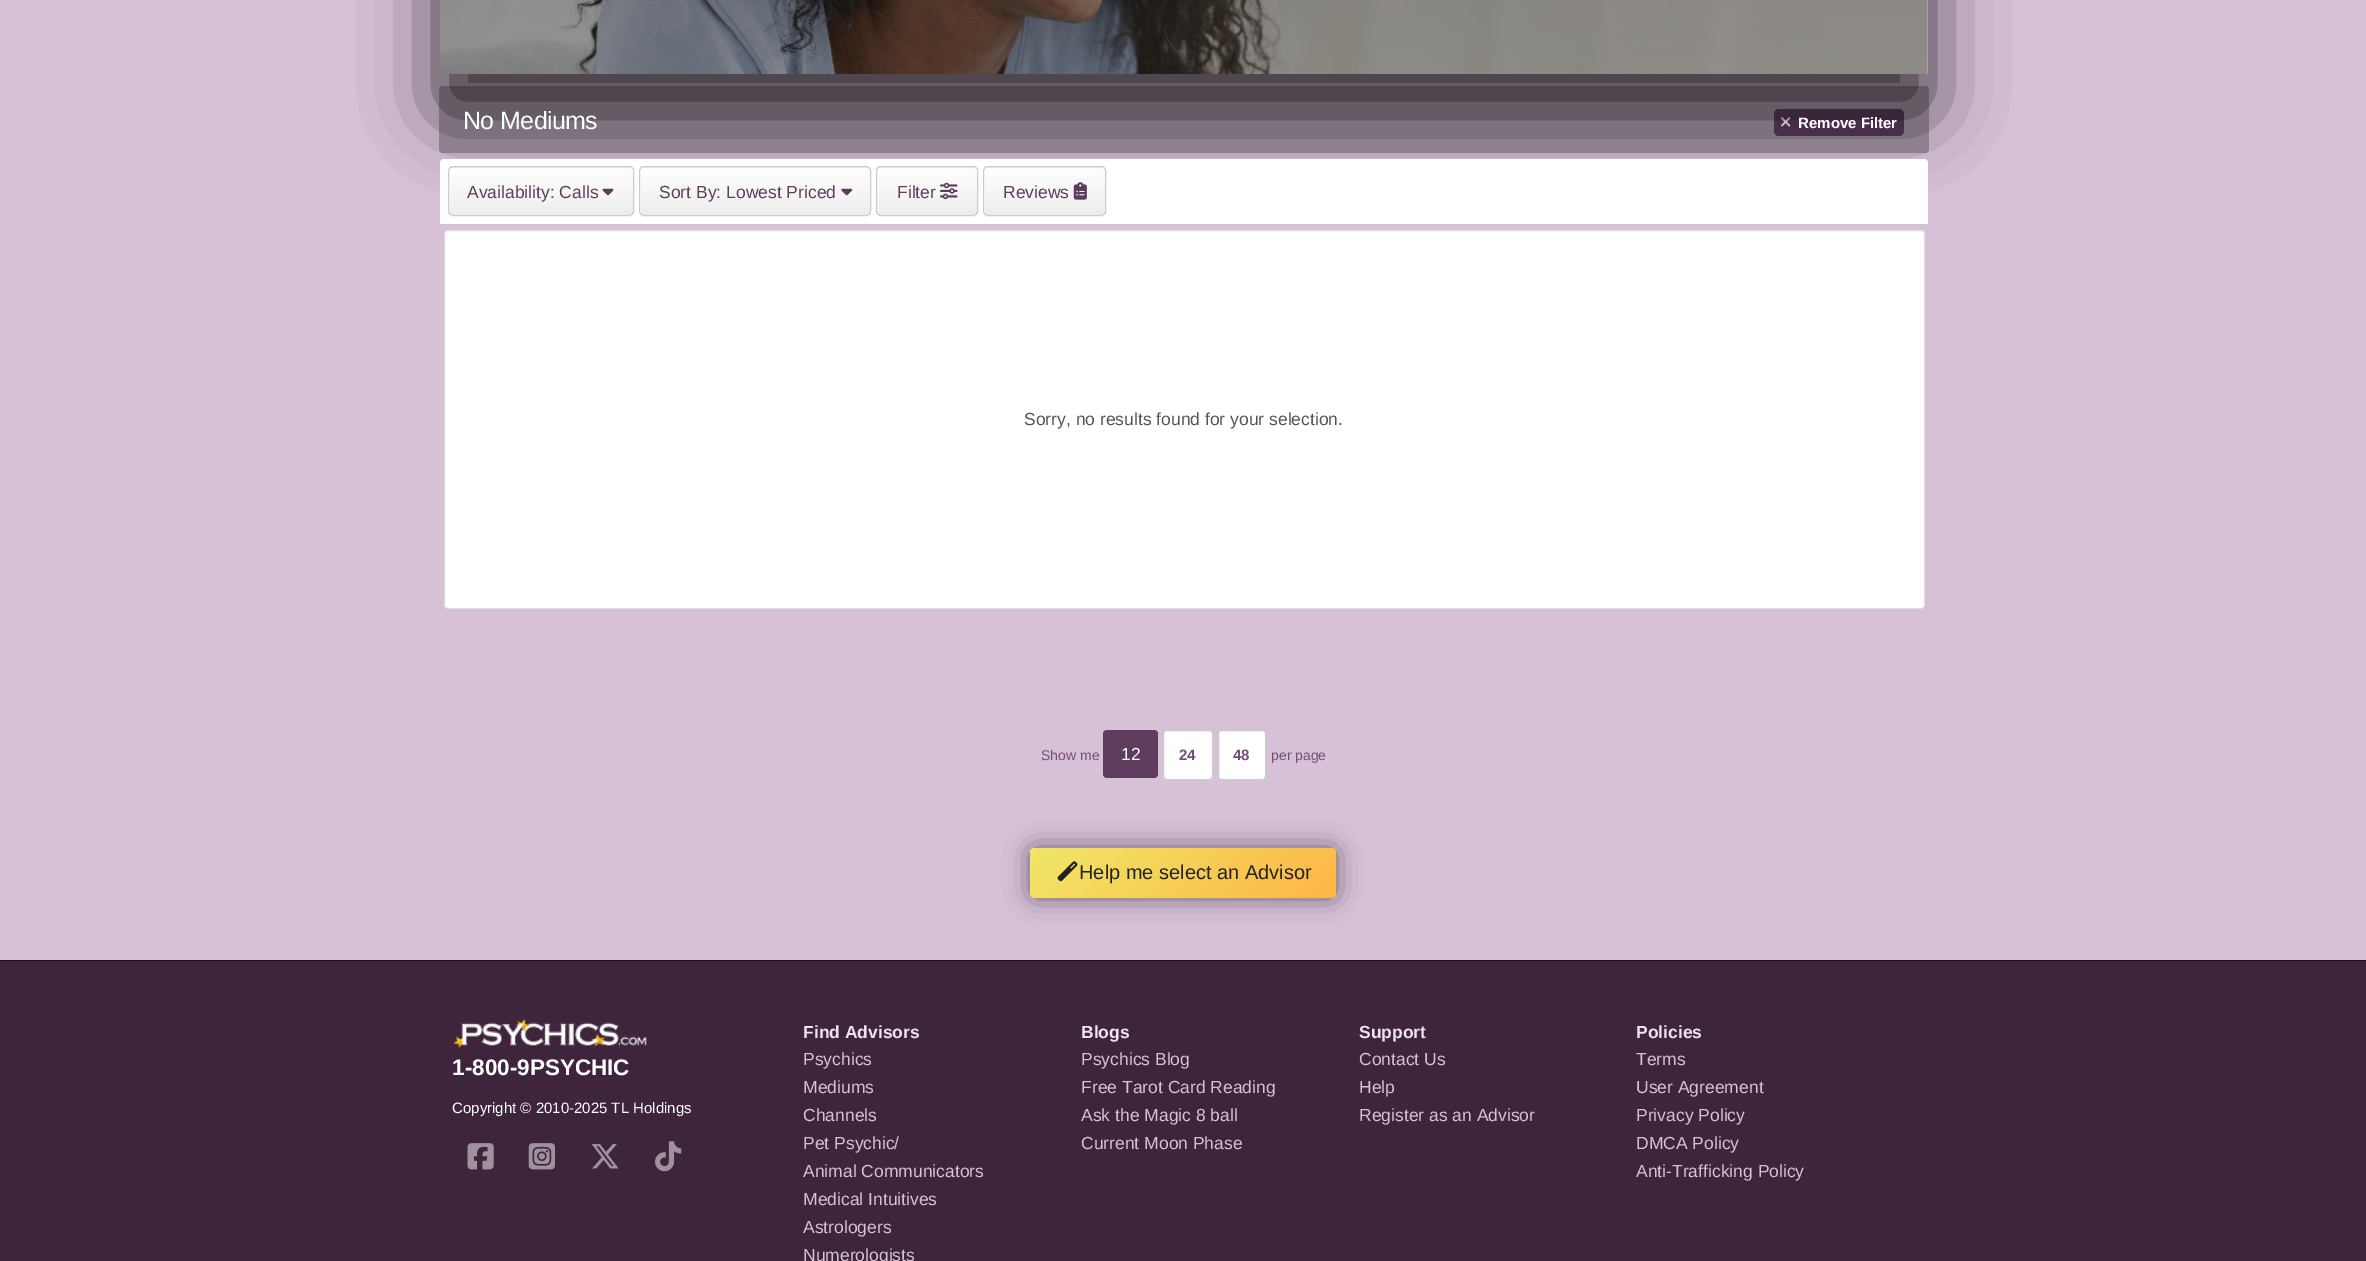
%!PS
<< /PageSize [2366 1261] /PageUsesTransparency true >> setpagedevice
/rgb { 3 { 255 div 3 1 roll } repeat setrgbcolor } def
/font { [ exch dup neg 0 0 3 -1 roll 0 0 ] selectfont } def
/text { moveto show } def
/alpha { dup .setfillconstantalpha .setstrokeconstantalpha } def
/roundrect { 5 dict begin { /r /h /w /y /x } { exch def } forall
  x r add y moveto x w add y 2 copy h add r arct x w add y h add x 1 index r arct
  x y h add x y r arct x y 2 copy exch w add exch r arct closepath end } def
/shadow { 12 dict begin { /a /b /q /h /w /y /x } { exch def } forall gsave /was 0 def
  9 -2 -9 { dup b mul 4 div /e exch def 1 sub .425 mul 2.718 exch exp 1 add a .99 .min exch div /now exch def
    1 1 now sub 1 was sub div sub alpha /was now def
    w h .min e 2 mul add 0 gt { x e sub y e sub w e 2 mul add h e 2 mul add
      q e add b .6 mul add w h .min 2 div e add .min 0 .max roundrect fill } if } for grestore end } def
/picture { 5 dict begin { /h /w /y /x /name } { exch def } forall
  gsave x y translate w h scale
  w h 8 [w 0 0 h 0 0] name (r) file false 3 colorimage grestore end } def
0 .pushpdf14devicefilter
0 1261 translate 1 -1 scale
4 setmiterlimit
215 193 215 rgb
0 0 2366 1261 rectfill
161 145 161 rgb
439 86 1490 67 4 roundrect fill
93 60 93 rgb
1774 109 130 27 5 roundrect fill
(img_02.rgb) 1781 117 10 10 picture
0 0 0 rgb
440 -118 1488 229 5 37.5 0.75 shadow
(img_01.rgb) 440 0 1488 74 picture
255 255 255 rgb
444 159 moveto 1480 0 rlineto 2 0 4 2 4 4 rcurveto 0 61 rlineto -1488 0 rlineto 0 -61 rlineto 0 -2 2 -4 4 -4 rcurveto closepath fill
gsave
448 166 186 50 5 roundrect clip newpath
gsave 448 166 moveto 186 0 rlineto 0 2 rlineto -186 0 rlineto closepath clip newpath
<< /ShadingType 2 /ColorSpace /DeviceRGB /Coords [541 120 541 168] /Extend [true true] /Function << /FunctionType 3 /Domain [0 1] /Functions [<< /FunctionType 2 /Domain [0 1] /C0 [1 1 1] /C1 [0.965 0.965 0.965] /N 1 >> << /FunctionType 2 /Domain [0 1] /C0 [0.965 0.965 0.965] /C1 [0.929 0.929 0.929] /N 1 >>] /Bounds [0.47] /Encode [0 1 0 1] >> >> shfill grestore
gsave 448 168 moveto 186 0 rlineto 0 47 rlineto -186 0 rlineto closepath clip newpath
<< /ShadingType 2 /ColorSpace /DeviceRGB /Coords [541 168 541 215] /Extend [true true] /Function << /FunctionType 3 /Domain [0 1] /Functions [<< /FunctionType 2 /Domain [0 1] /C0 [1 1 1] /C1 [0.965 0.965 0.965] /N 1 >> << /FunctionType 2 /Domain [0 1] /C0 [0.965 0.965 0.965] /C1 [0.929 0.929 0.929] /N 1 >>] /Bounds [0.47] /Encode [0 1 0 1] >> >> shfill grestore
grestore
454 169 moveto 178 0 rlineto -1 0 -2 -1 -3 -1 rcurveto -176 0 rlineto -2 0 -4 2 -4 4 rcurveto 0 39 rlineto 0 1 1 2 1 3 rcurveto 0 -35 rlineto 0 -4 -1 -10 4 -10 rcurveto closepath fill
204 204 204 rgb
448.5 166.5 185 49 4.5 roundrect stroke
(img_03.rgb) 602 188 12 8 picture
gsave
639 166 232 50 5 roundrect clip newpath
gsave 639 166 moveto 232 0 rlineto 0 2 rlineto -232 0 rlineto closepath clip newpath
<< /ShadingType 2 /ColorSpace /DeviceRGB /Coords [755 120 755 168] /Extend [true true] /Function << /FunctionType 3 /Domain [0 1] /Functions [<< /FunctionType 2 /Domain [0 1] /C0 [1 1 1] /C1 [0.965 0.965 0.965] /N 1 >> << /FunctionType 2 /Domain [0 1] /C0 [0.965 0.965 0.965] /C1 [0.929 0.929 0.929] /N 1 >>] /Bounds [0.47] /Encode [0 1 0 1] >> >> shfill grestore
gsave 639 168 moveto 232 0 rlineto 0 47 rlineto -232 0 rlineto closepath clip newpath
<< /ShadingType 2 /ColorSpace /DeviceRGB /Coords [755 168 755 215] /Extend [true true] /Function << /FunctionType 3 /Domain [0 1] /Functions [<< /FunctionType 2 /Domain [0 1] /C0 [1 1 1] /C1 [0.965 0.965 0.965] /N 1 >> << /FunctionType 2 /Domain [0 1] /C0 [0.965 0.965 0.965] /C1 [0.929 0.929 0.929] /N 1 >>] /Bounds [0.47] /Encode [0 1 0 1] >> >> shfill grestore
grestore
255 255 255 rgb
645 169 moveto 224 0 rlineto -1 -1 -2 -1 -3 -1 rcurveto -222 0 rlineto -2 0 -4 2 -4 4 rcurveto 0 39 rlineto 0 1 1 2 1 3 rcurveto 0 -35 rlineto 0 -4 -1 -10 4 -10 rcurveto closepath fill
204 204 204 rgb
639.5 166.5 231 49 4.5 roundrect stroke
(img_04.rgb) 841 188 12 8 picture
gsave
876 166 102 50 5 roundrect clip newpath
gsave 876 166 moveto 102 0 rlineto 0 2 rlineto -102 0 rlineto closepath clip newpath
<< /ShadingType 2 /ColorSpace /DeviceRGB /Coords [927 120 927 168] /Extend [true true] /Function << /FunctionType 3 /Domain [0 1] /Functions [<< /FunctionType 2 /Domain [0 1] /C0 [1 1 1] /C1 [0.965 0.965 0.965] /N 1 >> << /FunctionType 2 /Domain [0 1] /C0 [0.965 0.965 0.965] /C1 [0.929 0.929 0.929] /N 1 >>] /Bounds [0.47] /Encode [0 1 0 1] >> >> shfill grestore
gsave 876 168 moveto 102 0 rlineto 0 47 rlineto -102 0 rlineto closepath clip newpath
<< /ShadingType 2 /ColorSpace /DeviceRGB /Coords [927 168 927 215] /Extend [true true] /Function << /FunctionType 3 /Domain [0 1] /Functions [<< /FunctionType 2 /Domain [0 1] /C0 [1 1 1] /C1 [0.965 0.965 0.965] /N 1 >> << /FunctionType 2 /Domain [0 1] /C0 [0.965 0.965 0.965] /C1 [0.929 0.929 0.929] /N 1 >>] /Bounds [0.47] /Encode [0 1 0 1] >> >> shfill grestore
grestore
255 255 255 rgb
882 169 moveto 93 0 rlineto -1 -1 -2 -1 -3 -1 rcurveto -90 0 rlineto -2 0 -4 2 -4 4 rcurveto 0 39 rlineto 0 1 0 2 1 3 rcurveto 0 -35 rlineto 0 -3 -2 -10 3 -10 rcurveto closepath fill
204 204 204 rgb
876.5 166.5 101 49 4.5 roundrect stroke
(img_05.rgb) 940 182 18 18 picture
gsave
983 166 123 50 5 roundrect clip newpath
gsave 983 166 moveto 123 0 rlineto 0 2 rlineto -123 0 rlineto closepath clip newpath
<< /ShadingType 2 /ColorSpace /DeviceRGB /Coords [1044 120 1044 168] /Extend [true true] /Function << /FunctionType 3 /Domain [0 1] /Functions [<< /FunctionType 2 /Domain [0 1] /C0 [1 1 1] /C1 [0.965 0.965 0.965] /N 1 >> << /FunctionType 2 /Domain [0 1] /C0 [0.965 0.965 0.965] /C1 [0.929 0.929 0.929] /N 1 >>] /Bounds [0.47] /Encode [0 1 0 1] >> >> shfill grestore
gsave 983 168 moveto 123 0 rlineto 0 47 rlineto -123 0 rlineto closepath clip newpath
<< /ShadingType 2 /ColorSpace /DeviceRGB /Coords [1044 168 1044 215] /Extend [true true] /Function << /FunctionType 3 /Domain [0 1] /Functions [<< /FunctionType 2 /Domain [0 1] /C0 [1 1 1] /C1 [0.965 0.965 0.965] /N 1 >> << /FunctionType 2 /Domain [0 1] /C0 [0.965 0.965 0.965] /C1 [0.929 0.929 0.929] /N 1 >>] /Bounds [0.47] /Encode [0 1 0 1] >> >> shfill grestore
grestore
255 255 255 rgb
989 169 moveto 115 0 rlineto -1 -1 -2 -1 -3 -1 rcurveto -113 0 rlineto -2 0 -4 2 -4 4 rcurveto 0 39 rlineto 0 1 1 2 1 3 rcurveto 0 -35 rlineto 0 -4 -1 -10 4 -10 rcurveto closepath fill
204 204 204 rgb
983.5 166.5 122 49 4.5 roundrect stroke
(img_06.rgb) 1073 182 14 18 picture
255 255 255 rgb
444.5 230.5 1480 378 3.5 roundrect gsave fill grestore
221 221 221 rgb
stroke
93 60 93 rgb
1103 730 55 48 4 roundrect fill
255 255 255 rgb
1163.5 730.5 49 49 3.5 roundrect gsave fill grestore
204 204 204 rgb
stroke
255 255 255 rgb
1218.5 730.5 47 49 3.5 roundrect gsave fill grestore
204 204 204 rgb
stroke
0 0 0 rgb
1030 848 306 50 5 12.5 0.5 shadow
gsave 1030 848 306 50 5 roundrect clip newpath
<< /ShadingType 2 /ColorSpace /DeviceRGB /Coords [1094 783 1272 962] /Extend [true true] /Function << /FunctionType 2 /Domain [0 1] /C0 [0.945 0.906 0.404] /C1 [0.996 0.714 0.271] /N 1 >> >> shfill grestore
(img_07.rgb) 1057 861 21 21 picture
gsave 0 960 moveto 2366 0 rlineto 0 1 rlineto -2366 0 rlineto closepath clip newpath
<< /ShadingType 2 /ColorSpace /DeviceRGB /Coords [1183 296 1183 961] /Extend [true true] /Function << /FunctionType 3 /Domain [0 1] /Functions [<< /FunctionType 2 /Domain [0 1] /C0 [0.247 0.145 0.235] /C1 [0.247 0.145 0.235] /N 1 >> << /FunctionType 2 /Domain [0 1] /C0 [0.247 0.145 0.235] /C1 [0.118 0.071 0.11] /N 1 >>] /Bounds [0.51] /Encode [0 1 0 1] >> >> shfill grestore
gsave 0 961 moveto 2366 0 rlineto 0 300 rlineto -2366 0 rlineto closepath clip newpath
<< /ShadingType 2 /ColorSpace /DeviceRGB /Coords [1183 961 1183 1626] /Extend [true true] /Function << /FunctionType 3 /Domain [0 1] /Functions [<< /FunctionType 2 /Domain [0 1] /C0 [0.247 0.145 0.235] /C1 [0.247 0.145 0.235] /N 1 >> << /FunctionType 2 /Domain [0 1] /C0 [0.247 0.145 0.235] /C1 [0.118 0.071 0.11] /N 1 >>] /Bounds [0.51] /Encode [0 1 0 1] >> >> shfill grestore
(img_08.rgb) 452 1019 195 30 picture
(img_09.rgb) 467 1143 27 27 picture
(img_10.rgb) 528 1143 27 27 picture
(img_11.rgb) 591 1144 28 25 picture
(img_12.rgb) 655 1141 27 31 picture
/LiberationSans-Regular 25 font
255 255 255 rgb
463 129 moveto -0.6 0 (No Mediums) ashow
/LiberationSans-Bold 15 font
(Remove Filter) 1798 128 text
/LiberationSans-Regular 17.5 font
93 60 93 rgb
(Availability: Calls) 467 198 text
(Sort By: Lowest Priced) 659 198 text
(Filter) 897 198 text
(Reviews) 1003 198 text
84 84 84 rgb
(Sorry, no results found for your selection.) 1024 425 text
/LiberationSans-Regular 14 font
120 77 120 rgb
(Show me) 1041 760 text
/LiberationSans-Regular 17.5 font
255 255 255 rgb
(12) 1121 760 text
/LiberationSans-Bold 15 font
120 77 120 rgb
(24) 1179 760 text
(48) 1233 760 text
/LiberationSans-Regular 14 font
(per page) 1271 760 text
/LiberationSans-Regular 20 font
34 34 34 rgb
(Help me select an Advisor) 1079 879 text
/LiberationSans-Bold 22.5 font
255 255 255 rgb
(1-800-9PSYCHIC) 452 1075 text
/LiberationSans-Regular 15 font
(Copyright © 2010-2025 TL Holdings) 452 1113 text
/LiberationSans-Bold 17.5 font
238 228 238 rgb
(Find Advisors) 803 1038 text
/LiberationSans-Regular 17.5 font
215 193 215 rgb
(Psychics) 803 1065 text
(Mediums) 803 1093 text
(Channels) 803 1121 text
(Pet Psychic/) 803 1149 text
(Animal Communicators) 803 1177 text
(Medical Intuitives) 803 1205 text
(Astrologers) 803 1233 text
(Numerologists) 803 1261 text
/LiberationSans-Bold 17.5 font
238 228 238 rgb
(Blogs) 1081 1038 text
/LiberationSans-Regular 17.5 font
215 193 215 rgb
(Psychics Blog) 1081 1065 text
(Free Tarot Card Reading) 1081 1093 text
(Ask the Magic 8 ball) 1081 1121 text
(Current Moon Phase) 1081 1149 text
/LiberationSans-Bold 17.5 font
238 228 238 rgb
(Support) 1359 1038 text
/LiberationSans-Regular 17.5 font
215 193 215 rgb
(Contact Us) 1359 1065 text
(Help) 1359 1093 text
(Register as an Advisor) 1359 1121 text
/LiberationSans-Bold 17.5 font
238 228 238 rgb
(Policies) 1636 1038 text
/LiberationSans-Regular 17.5 font
215 193 215 rgb
(Terms) 1636 1065 text
(User Agreement) 1636 1093 text
(Privacy Policy) 1636 1121 text
(DMCA Policy) 1636 1149 text
(Anti-Trafficking Policy) 1636 1177 text
.poppdf14devicefilter showpage
